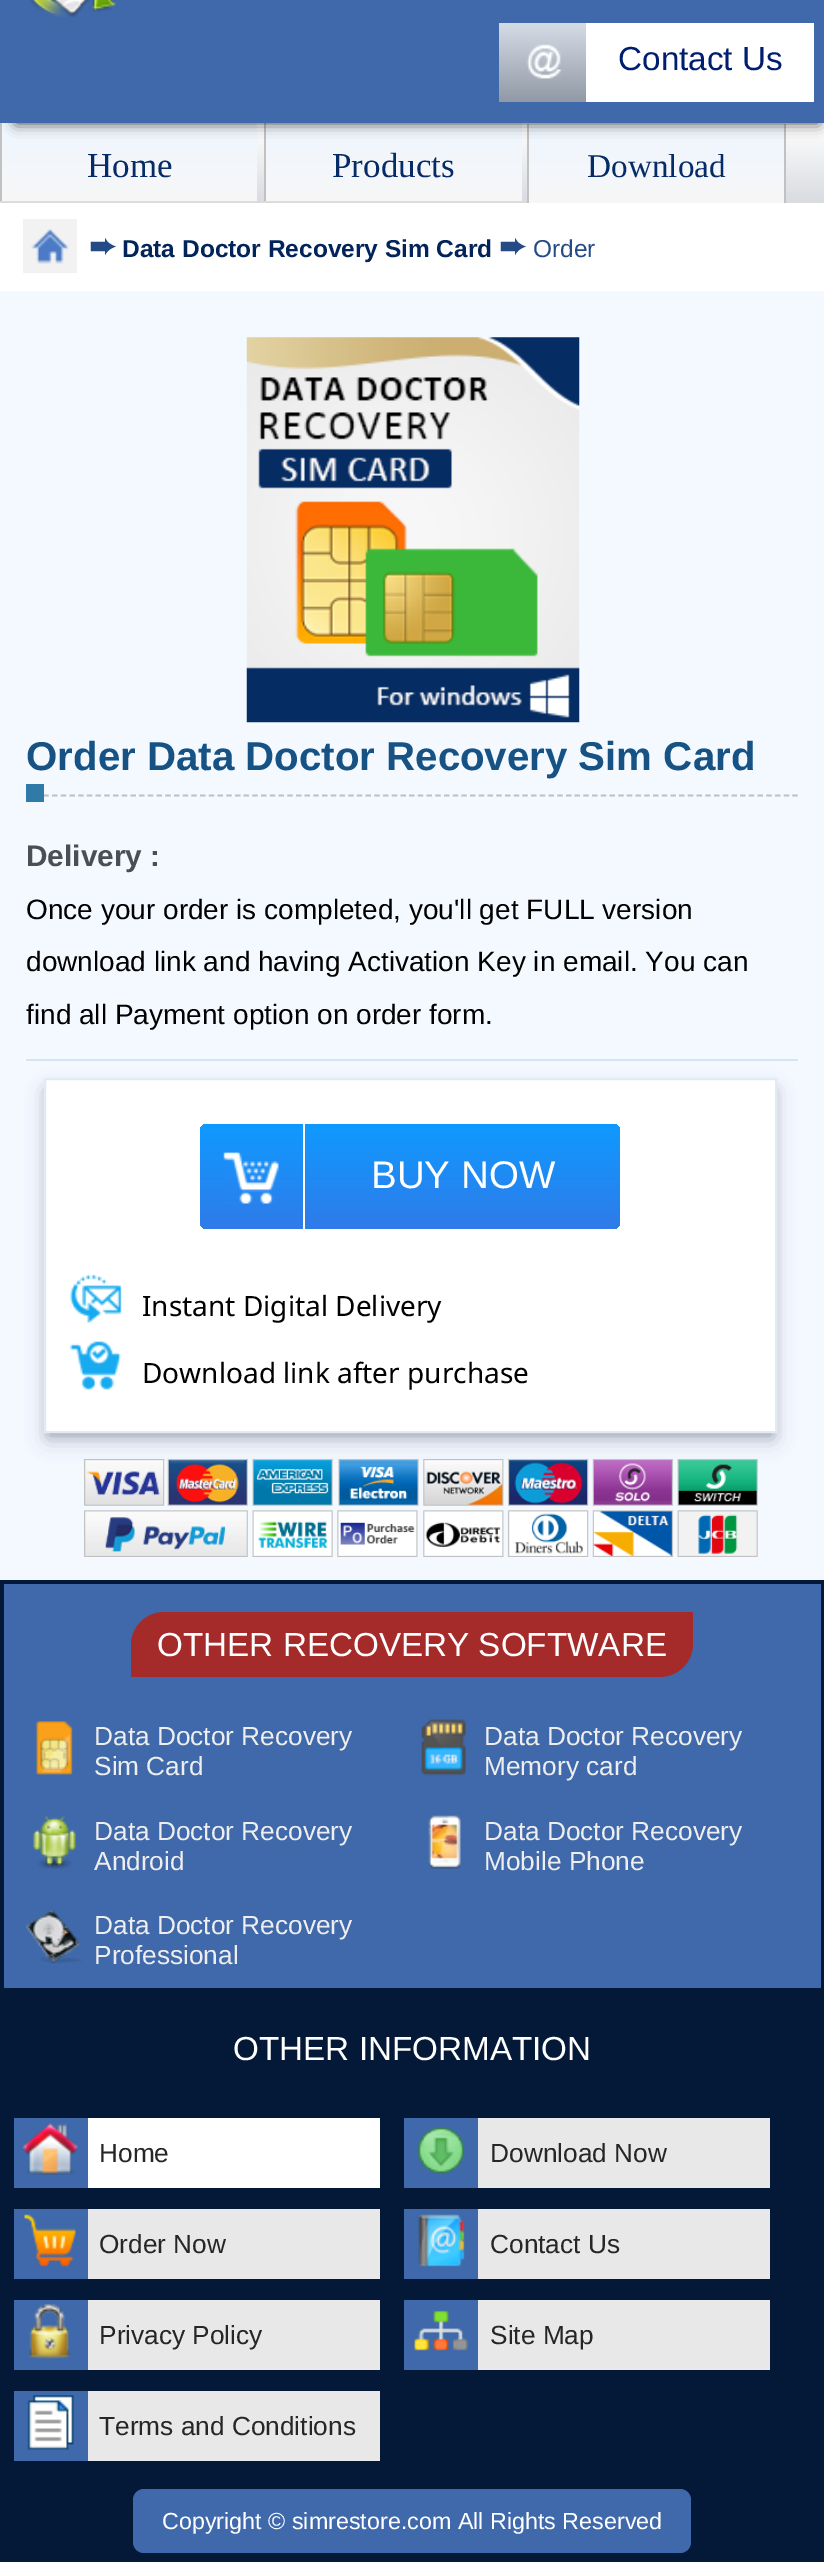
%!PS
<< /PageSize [824 2562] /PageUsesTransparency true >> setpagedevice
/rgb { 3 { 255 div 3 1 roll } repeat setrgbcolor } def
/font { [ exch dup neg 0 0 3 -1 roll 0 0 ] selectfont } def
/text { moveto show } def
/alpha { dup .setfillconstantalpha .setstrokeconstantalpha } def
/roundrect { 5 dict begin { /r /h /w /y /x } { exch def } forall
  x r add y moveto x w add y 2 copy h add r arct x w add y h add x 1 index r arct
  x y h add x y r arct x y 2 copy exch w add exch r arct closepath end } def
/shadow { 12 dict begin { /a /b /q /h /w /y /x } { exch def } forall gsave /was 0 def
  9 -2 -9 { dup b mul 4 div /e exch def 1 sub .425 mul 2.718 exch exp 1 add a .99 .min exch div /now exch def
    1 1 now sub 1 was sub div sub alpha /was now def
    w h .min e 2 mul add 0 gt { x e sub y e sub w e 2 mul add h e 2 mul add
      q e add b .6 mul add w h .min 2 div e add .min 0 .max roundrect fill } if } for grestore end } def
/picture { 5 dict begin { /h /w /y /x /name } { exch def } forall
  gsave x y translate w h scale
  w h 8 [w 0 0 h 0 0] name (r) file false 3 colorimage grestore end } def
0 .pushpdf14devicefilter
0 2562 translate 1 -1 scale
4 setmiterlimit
255 255 255 rgb
0 0 824 2562 rectfill
gsave 257 127 moveto 567 0 rlineto 0 74 rlineto -567 0 rlineto closepath clip newpath
<< /ShadingType 2 /ColorSpace /DeviceRGB /Coords [412 122 412 201] /Extend [true true] /Function << /FunctionType 2 /Domain [0 1] /C0 [1 1 1] /C1 [0.851 0.863 0.882] /N 1 >> >> shfill grestore
gsave 2 123 moveto 255 0 rlineto 0 78 rlineto -255 0 rlineto closepath clip newpath
<< /ShadingType 2 /ColorSpace /DeviceRGB /Coords [130 122 130 201] /Extend [true true] /Function << /FunctionType 2 /Domain [0 1] /C0 [0.937 0.965 1] /C1 [0.969 0.969 0.969] /N 1 >> >> shfill grestore
193 193 193 rgb
0 123 2 78 rectfill
gsave 266 123 moveto 256 0 rlineto 0 78 rlineto -256 0 rlineto closepath clip newpath
<< /ShadingType 2 /ColorSpace /DeviceRGB /Coords [394 122 394 201] /Extend [true true] /Function << /FunctionType 2 /Domain [0 1] /C0 [0.937 0.965 1] /C1 [0.969 0.969 0.969] /N 1 >> >> shfill grestore
264 123 2 78 rectfill
219 219 219 rgb
0 201 824 2 rectfill
gsave 529 124 moveto 255 0 rlineto 0 79 rlineto -255 0 rlineto closepath clip newpath
<< /ShadingType 2 /ColorSpace /DeviceRGB /Coords [656 124 656 203] /Extend [true true] /Function << /FunctionType 2 /Domain [0 1] /C0 [0.937 0.965 1] /C1 [0.969 0.969 0.969] /N 1 >> >> shfill grestore
193 193 193 rgb
784 124 2 79 rectfill
527 124 2 79 rectfill
51 51 51 rgb
16 -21 803 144 0 7 1 shadow
63 105 170 rgb
0 0 824 123 rectfill
(img_01.rgb) 29 0 87 17 picture
255 255 255 rgb
586 23 228 79 rectfill
gsave 499 23 moveto 87 0 rlineto 0 79 rlineto -87 0 rlineto closepath clip newpath
<< /ShadingType 2 /ColorSpace /DeviceRGB /Coords [543 23 543 102] /Extend [true true] /Function << /FunctionType 2 /Domain [0 1] /C0 [0.835 0.863 0.902] /C1 [0.569 0.6 0.651] /N 1 >> >> shfill grestore
(img_02.rgb) 526 44 36 35 picture
242 242 242 rgb
23 219 54 54 rectfill
(img_03.rgb) 31 228 38 36 picture
244 248 255 rgb
0 291 824 1289 rectfill
(img_04.rgb) 246 337 334 386 picture
192 192 192 rgb
1.8 setlinewidth
[5.25 3.46] 0 setdash
26 795.5 moveto 772 0 rlineto stroke
48 122 167 rgb
26 784 18 18 rectfill
213 229 244 rgb
26 1059 772 2 rectfill
0 0 0 rgb
49 1089 723 344 0 6 0.3 shadow
50 50 93 rgb
47 1092 727 348 0 10.5 0.25 shadow
255 255 255 rgb
45 1079 moveto 731 0 rlineto 0 353 rlineto -731 0 rlineto closepath gsave fill grestore
225 235 243 rgb
2 setlinewidth
[] 0 setdash
stroke
gsave 200 1124 420 105 7 roundrect clip newpath
<< /ShadingType 2 /ColorSpace /DeviceRGB /Coords [410 1124 410 1229] /Extend [true true] /Function << /FunctionType 2 /Domain [0 1] /C0 [0.059 0.604 1] /C1 [0.184 0.482 0.91] /N 1 >> >> shfill grestore
(img_05.rgb) 223 1152 56 52 picture
255 255 255 rgb
303 1124 2 105 rectfill
(img_06.rgb) 70 1274 52 49 picture
(img_07.rgb) 70 1341 52 49 picture
(img_08.rgb) 84 1459 674 98 picture
4 24 55 rgb
0 1580 824 982 rectfill
63 105 170 rgb
4 1584 817 404 rectfill
165 42 42 rgb
164 1612 moveto 529 0 rlineto 0 32 rlineto 0 18 -15 33 -33 33 rcurveto -529 0 rlineto 0 -32 rlineto 0 -18 15 -33 33 -33 rcurveto closepath fill
(img_09.rgb) 36 1721 37 54 picture
(img_10.rgb) 421 1719 45 57 picture
(img_11.rgb) 32 1815 44 54 picture
(img_12.rgb) 428 1815 33 54 picture
(img_13.rgb) 26 1910 56 54 picture
255 255 255 rgb
88 2118 292 70 rectfill
63 105 170 rgb
14 2118 74 70 rectfill
(img_14.rgb) 22 2123 56 52 picture
232 232 233 rgb
478 2118 292 70 rectfill
63 105 170 rgb
404 2118 74 70 rectfill
(img_15.rgb) 417 2127 48 47 picture
232 232 233 rgb
88 2209 292 70 rectfill
63 105 170 rgb
14 2209 74 70 rectfill
(img_16.rgb) 24 2214 52 53 picture
232 232 233 rgb
478 2209 292 70 rectfill
63 105 170 rgb
404 2209 74 70 rectfill
(img_17.rgb) 418 2214 47 53 picture
232 232 233 rgb
88 2300 292 70 rectfill
63 105 170 rgb
14 2300 74 70 rectfill
(img_18.rgb) 28 2303 43 56 picture
232 232 233 rgb
478 2300 292 70 rectfill
63 105 170 rgb
404 2300 74 70 rectfill
(img_19.rgb) 414 2310 54 41 picture
232 232 233 rgb
88 2391 292 70 rectfill
63 105 170 rgb
14 2391 74 70 rectfill
(img_20.rgb) 27 2395 47 55 picture
133 2489 558 64 11 roundrect fill
/LiberationSans-Regular 33.25 font
0 30 112 rgb
(Contact Us) 618 70 text
/LiberationSerif-Regular 35 font
6 44 103 rgb
(Home) 87 177 text
(Products) 332 177 text
/LiberationSerif-Regular 33.25 font
(Download) 587 177 text
/DejaVuSans-Bold 32 font
37 75 134 rgb
(➨) 89 257 text
/LiberationSans-Bold 24.5 font
2 36 90 rgb
(Data Doctor Recovery Sim Card) 122 257 text
/DejaVuSans-Bold 32 font
37 75 134 rgb
(➨) 499 257 text
/LiberationSans-Regular 24.5 font
(Order) 533 257 text
/LiberationSans-Bold 40.25 font
22 83 132 rgb
(Order Data Doctor Recovery Sim Card) 26 770 text
/LiberationSans-Bold 29.75 font
72 80 86 rgb
(Delivery :) 26 866 text
/LiberationSans-Regular 28 font
0 0 0 rgb
(Once your order is completed, you'll get FULL version) 26 919 text
(download link and having Activation Key in email. You can) 26 971 text
(find all Payment option on order form.) 26 1024 text
/LiberationSans-Regular 38.5 font
255 255 255 rgb
(BUY NOW) 371 1188 text
/NotoSans-Regular 28 font
0 0 0 rgb
(Instant Digital Delivery) 142 1316 text
(Download link after purchase) 142 1383 text
/LiberationSans-Regular 33.25 font
255 255 255 rgb
(OTHER RECOVERY SOFTWARE) 157 1656 text
/LiberationSans-Regular 26.25 font
238 238 238 rgb
(Data Doctor Recovery) 94 1745 text
(Sim Card) 94 1775 text
(Data Doctor Recovery) 484 1745 text
(Memory card) 484 1775 text
(Data Doctor Recovery) 94 1840 text
(Android) 94 1870 text
(Data Doctor Recovery) 484 1840 text
(Mobile Phone) 484 1870 text
(Data Doctor Recovery) 94 1934 text
(Professional) 94 1964 text
/LiberationSans-Regular 33.25 font
255 255 255 rgb
(OTHER INFORMATION) 233 2060 text
/LiberationSans-Regular 26.25 font
38 38 38 rgb
(Home) 99 2162 text
(Download Now) 490 2162 text
(Order Now) 99 2253 text
(Contact Us) 490 2253 text
(Privacy Policy) 99 2344 text
(Site Map) 490 2344 text
(Terms and Conditions) 99 2435 text
/LiberationSans-Regular 23.3 font
255 255 255 rgb
(Copyright © simrestore.com All Rights Reserved) 162 2529 text
.poppdf14devicefilter showpage
